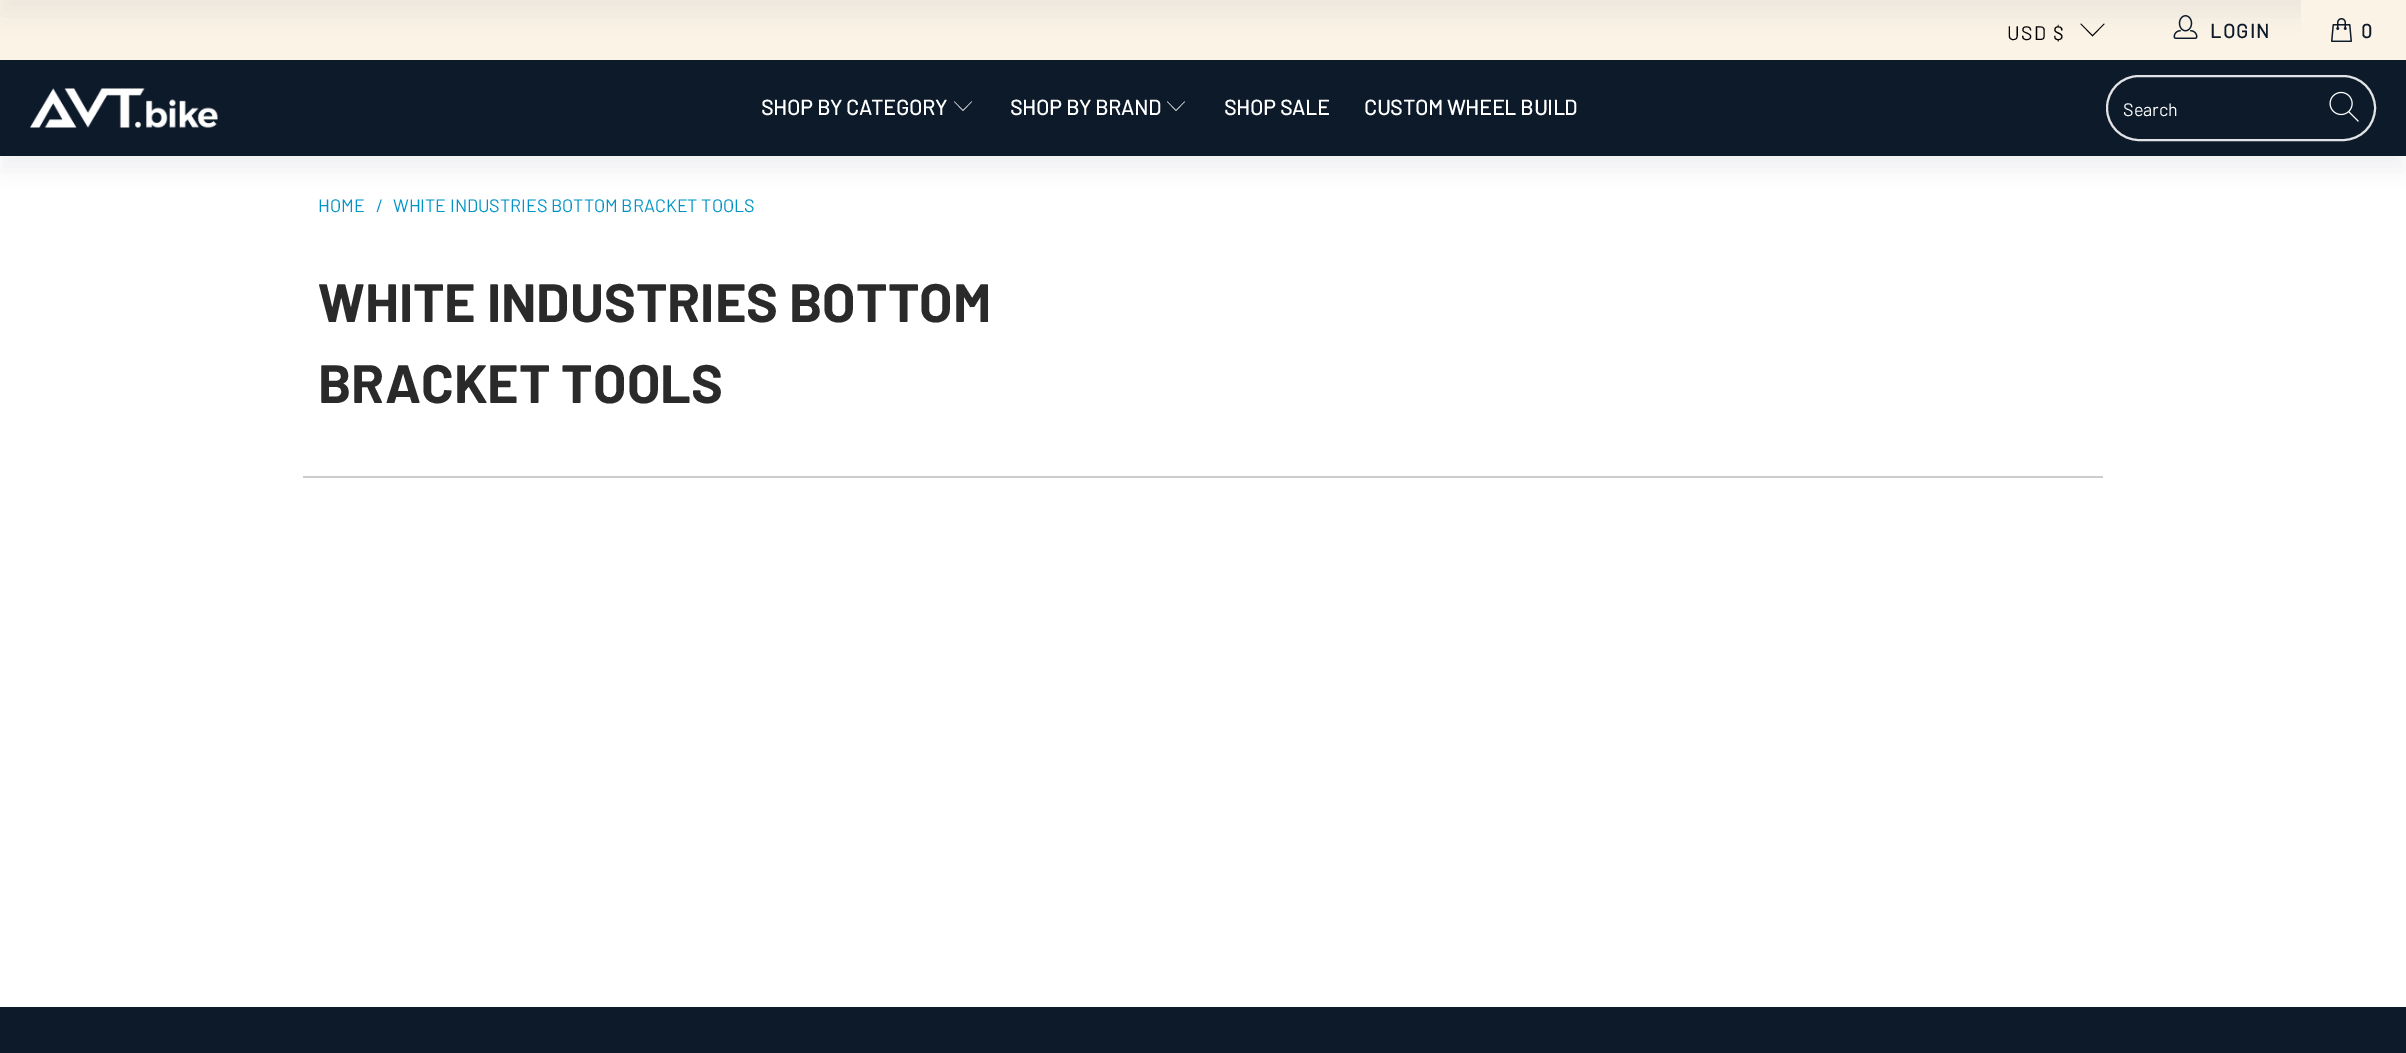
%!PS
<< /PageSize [2406 1053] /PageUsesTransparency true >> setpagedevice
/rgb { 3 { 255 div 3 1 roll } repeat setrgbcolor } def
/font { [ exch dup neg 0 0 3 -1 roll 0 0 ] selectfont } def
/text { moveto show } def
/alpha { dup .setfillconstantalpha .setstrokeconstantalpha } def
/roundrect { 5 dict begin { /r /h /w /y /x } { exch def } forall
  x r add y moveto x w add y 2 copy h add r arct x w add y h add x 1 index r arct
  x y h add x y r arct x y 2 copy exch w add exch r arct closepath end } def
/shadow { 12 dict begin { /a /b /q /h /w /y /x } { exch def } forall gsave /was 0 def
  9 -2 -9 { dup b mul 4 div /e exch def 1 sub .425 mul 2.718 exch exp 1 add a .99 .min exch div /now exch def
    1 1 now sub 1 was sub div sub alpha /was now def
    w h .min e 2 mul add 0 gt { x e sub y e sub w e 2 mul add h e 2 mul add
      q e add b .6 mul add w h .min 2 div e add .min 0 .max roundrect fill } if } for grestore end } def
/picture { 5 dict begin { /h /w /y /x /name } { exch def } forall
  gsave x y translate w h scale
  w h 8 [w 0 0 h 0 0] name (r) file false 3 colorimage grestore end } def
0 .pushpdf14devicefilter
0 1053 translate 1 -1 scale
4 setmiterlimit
255 255 255 rgb
0 0 2406 1053 rectfill
12 26 42 rgb
0 75 2406 96 0 12 0.05 shadow
250 243 230 rgb
0 0 2301 60 rectfill
0 0 0 rgb
2092.5 36.5 moveto -12 -12.5 rlineto 0.5 -0.5 rlineto 11.5 11.5 rlineto 11.5 -11.5 rlineto 0.5 0.5 rlineto closepath fill
(img_01.rgb) 2173 15 25 24 picture
12 26 42 rgb
0 -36 2406 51 0 12 0.05 shadow
250 243 230 rgb
2301 0 105 60 rectfill
(img_02.rgb) 2331 18 21 24 picture
12 26 42 rgb
0 60 2406 96 rectfill
(img_03.rgb) 30 88 188 40 picture
255 255 255 rgb
963 111 moveto -9 -9.5 rlineto 0.5 0 rlineto 8.5 8.5 rlineto 8.5 -8.5 rlineto 0.5 0 rlineto closepath fill
1176 111 moveto -9 -9.5 rlineto 0.5 0 rlineto 8.5 8.5 rlineto 8.5 -8.5 rlineto 0.5 0 rlineto closepath fill
226 227 229 rgb
2 setlinewidth
2107 76 268 64 32 roundrect stroke
(img_04.rgb) 2329 91 30 31 picture
204 204 204 rgb
303 476 1800 2 rectfill
12 26 42 rgb
0 1007 2406 46 rectfill
/Barlow-Regular 19.5 font
0 0 0 rgb
2007 40 moveto 1.5 0 (USD $) ashow
/Barlow-Bold 19.5 font
12 26 42 rgb
2210 38 moveto 1.5 0 (LOGIN) ashow
2361 38 moveto 1.5 0 (0) ashow
/Barlow-Bold 21 font
255 255 255 rgb
(SHOP BY CATEGORY) 761 115 text
(SHOP BY BRAND) 1010 115 text
(SHOP SALE) 1224 115 text
(CUSTOM WHEEL BUILD) 1364 115 text
/Barlow-Regular 18 font
(Search) 2123 116 text
0 148 198 rgb
(HOME) 318 212 text
(/) 376 212 text
(WHITE INDUSTRIES BOTTOM BRACKET TOOLS) 393 212 text
/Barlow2-Bold 54 font
43 42 42 rgb
(WHITE INDUSTRIES BOTTOM) 318 322 text
(BRACKET TOOLS) 318 403 text
.poppdf14devicefilter showpage
